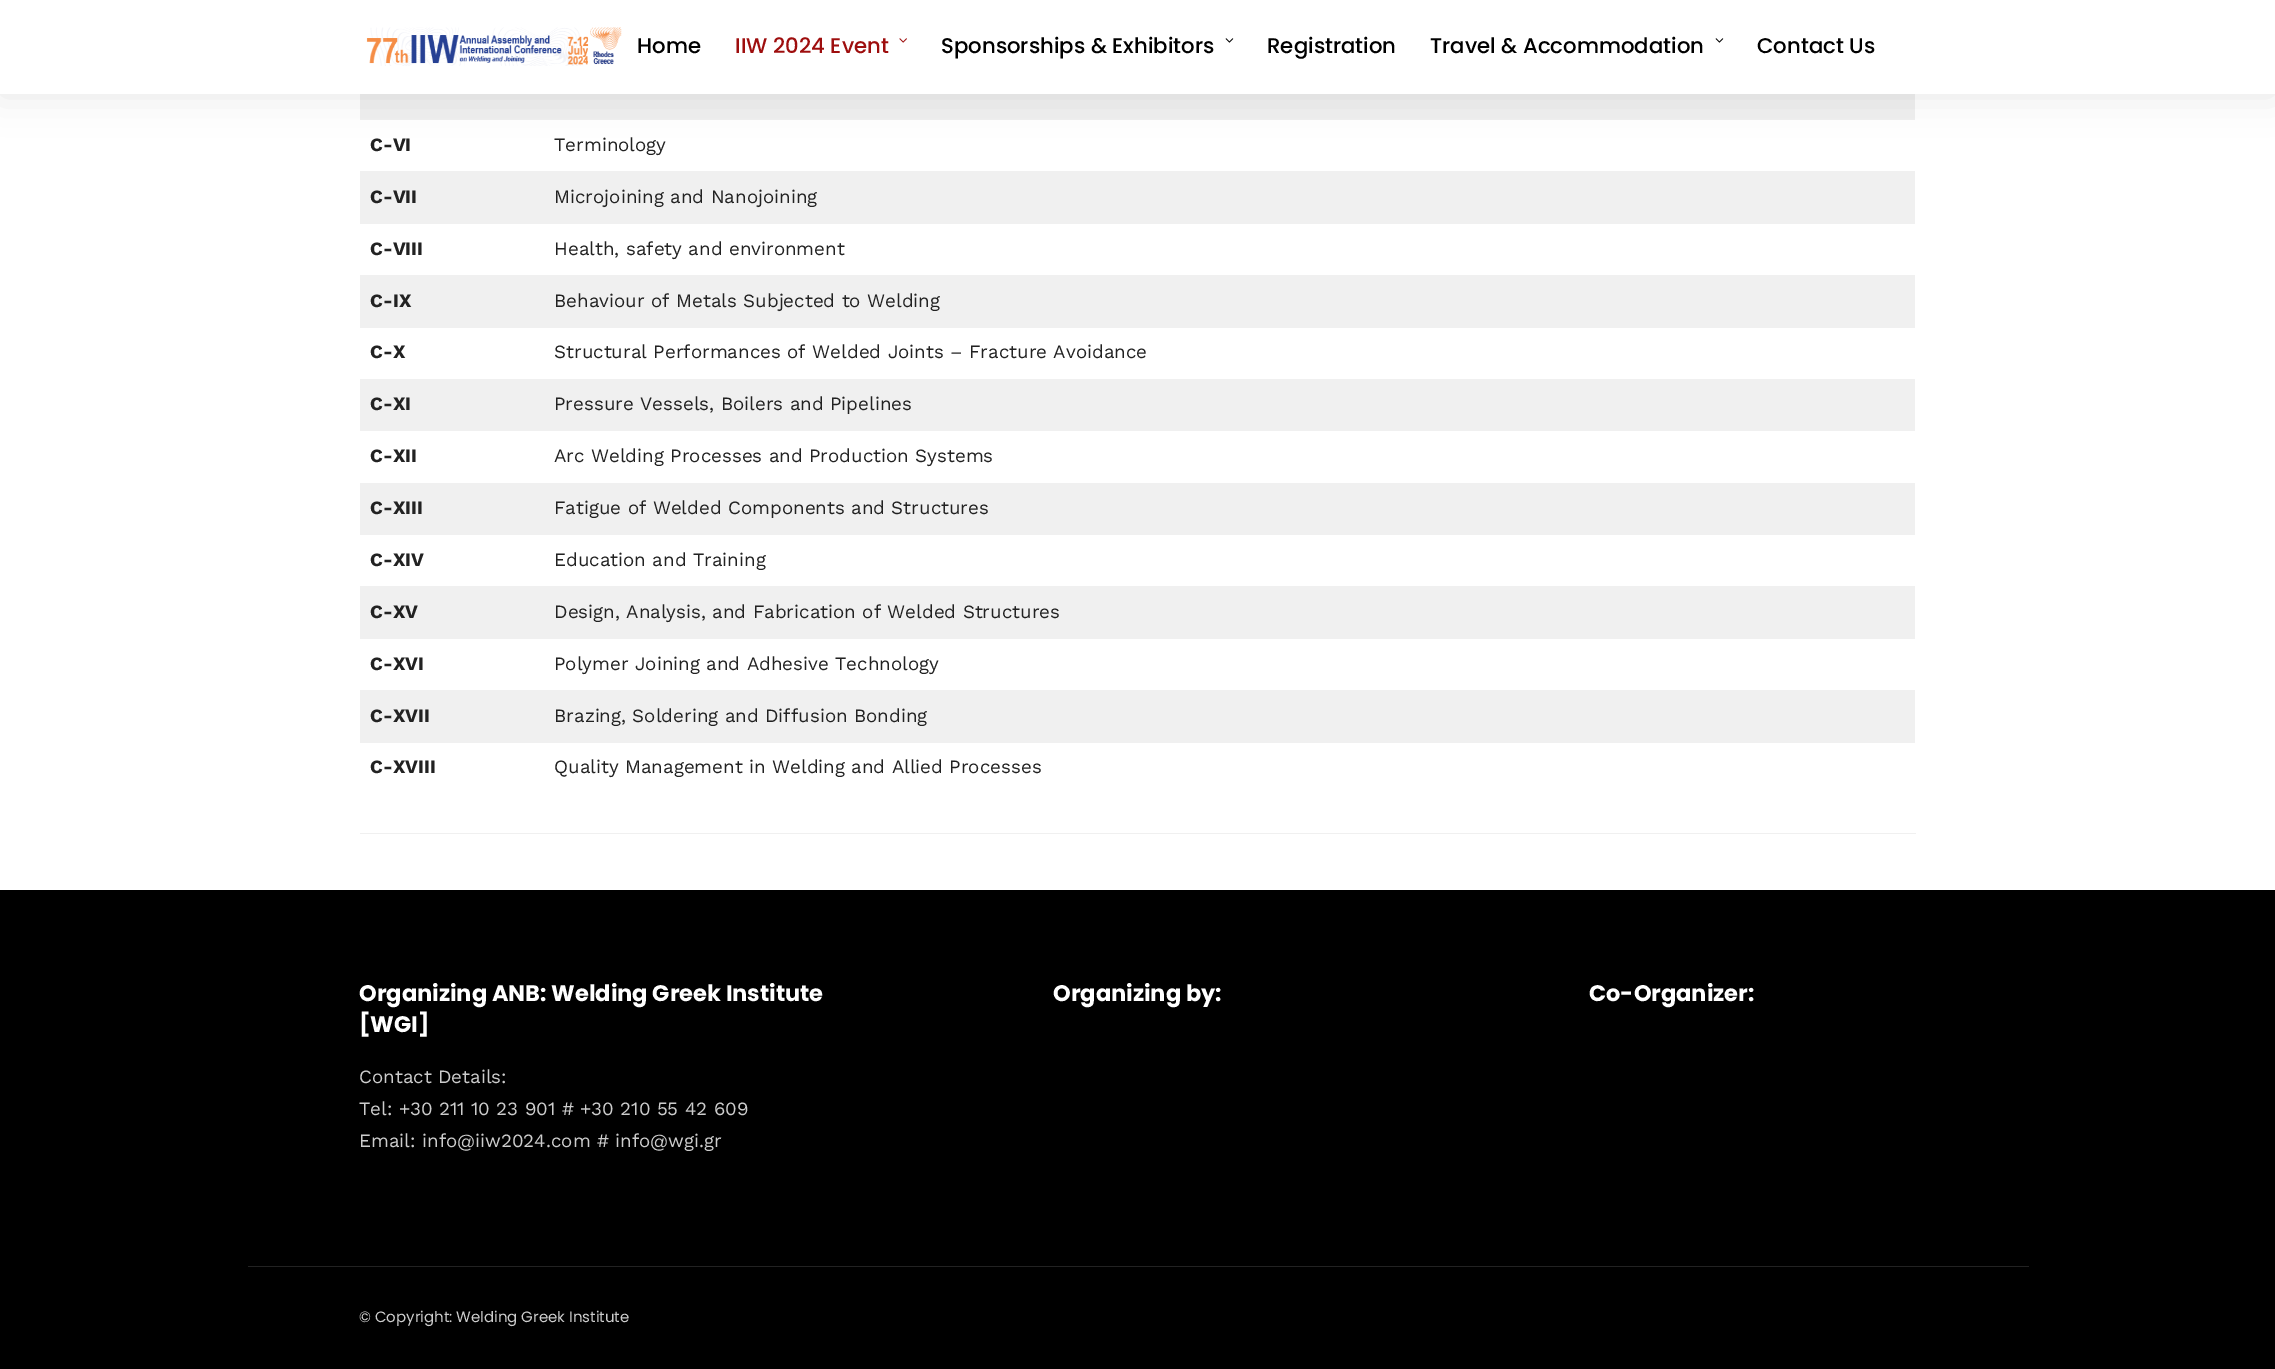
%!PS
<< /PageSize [2275 1369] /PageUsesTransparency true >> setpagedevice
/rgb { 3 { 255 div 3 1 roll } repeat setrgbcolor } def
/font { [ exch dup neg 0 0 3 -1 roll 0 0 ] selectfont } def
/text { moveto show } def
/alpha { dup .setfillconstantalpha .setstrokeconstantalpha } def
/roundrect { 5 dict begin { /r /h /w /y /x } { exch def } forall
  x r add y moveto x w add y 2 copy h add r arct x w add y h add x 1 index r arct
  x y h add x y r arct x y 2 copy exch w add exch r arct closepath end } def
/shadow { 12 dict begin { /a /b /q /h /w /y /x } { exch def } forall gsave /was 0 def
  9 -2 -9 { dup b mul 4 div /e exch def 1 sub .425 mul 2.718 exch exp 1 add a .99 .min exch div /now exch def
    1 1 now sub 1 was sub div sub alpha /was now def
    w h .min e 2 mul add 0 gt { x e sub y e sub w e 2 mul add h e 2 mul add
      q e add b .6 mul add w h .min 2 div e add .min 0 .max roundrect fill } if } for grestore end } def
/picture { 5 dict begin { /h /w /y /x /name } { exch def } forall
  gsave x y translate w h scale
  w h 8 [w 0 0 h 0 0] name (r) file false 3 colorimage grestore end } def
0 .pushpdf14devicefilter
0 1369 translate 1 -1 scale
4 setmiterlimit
255 255 255 rgb
0 0 2275 1369 rectfill
240 240 240 rgb
360 94 1555 26 rectfill
0 0 0 rgb
0 1 2275 94 0 19 0.1 shadow
255 255 255 rgb
0 0 2275 94 rectfill
(img_01.rgb) 366 27 256 39 picture
(img_02.rgb) 899 38 8 5 picture
(img_03.rgb) 1225 38 9 5 picture
(img_03.rgb) 1715 38 9 5 picture
240 240 240 rgb
360 833 1556 1 rectfill
360 171 1555 53 rectfill
360 275 1555 53 rectfill
360 379 1555 52 rectfill
360 483 1555 52 rectfill
360 586 1555 53 rectfill
360 690 1555 53 rectfill
0 0 0 rgb
0 890 2275 479 rectfill
34 34 34 rgb
248 1266 1781 1 rectfill
/Poppins-Medium 21.25 font
0 0 0 rgb
(Home) 637 53 text
158 14 14 rgb
(IIW 2024 Event) 735 53 text
0 0 0 rgb
(Sponsorships & Exhibitors) 941 53 text
(Registration) 1267 53 text
(Travel & Accommodation) 1430 53 text
(Contact Us) 1757 53 text
/WorkSans-Bold 18.75 font
34 34 34 rgb
(C-VI) 370 151 text
/WorkSans-Regular 18.75 font
(Terminology) 554 151 text
/WorkSans-Bold 18.75 font
(C-VII) 370 203 text
/WorkSans-Regular 18.75 font
(Microjoining and Nanojoining) 554 203 text
/WorkSans-Bold 18.75 font
(C-VIII) 370 255 text
/WorkSans-Regular 18.75 font
(Health, safety and environment) 554 255 text
/WorkSans-Bold 18.75 font
(C-IX) 370 307 text
/WorkSans-Regular 18.75 font
(Behaviour of Metals Subjected to Welding) 554 307 text
/WorkSans-Bold 18.75 font
(C-X) 370 358 text
/WorkSans-Regular 18.75 font
(Structural Performances of Welded Joints – Fracture Avoidance) 554 358 text
/WorkSans-Bold 18.75 font
(C-XI) 370 410 text
/WorkSans-Regular 18.75 font
(Pressure Vessels, Boilers and Pipelines) 554 410 text
/WorkSans-Bold 18.75 font
(C-XII) 370 462 text
/WorkSans-Regular 18.75 font
(Arc Welding Processes and Production Systems) 554 462 text
/WorkSans-Bold 18.75 font
(C-XIII) 370 514 text
/WorkSans-Regular 18.75 font
(Fatigue of Welded Components and Structures) 554 514 text
/WorkSans-Bold 18.75 font
(C-XIV) 370 566 text
/WorkSans-Regular 18.75 font
(Education and Training) 554 566 text
/WorkSans-Bold 18.75 font
(C-XV) 370 618 text
/WorkSans-Regular 18.75 font
(Design, Analysis, and Fabrication of Welded Structures) 554 618 text
/WorkSans-Bold 18.75 font
(C-XVI) 370 670 text
/WorkSans-Regular 18.75 font
(Polymer Joining and Adhesive Technology) 554 670 text
/WorkSans-Bold 18.75 font
(C-XVII) 370 722 text
/WorkSans-Regular 18.75 font
(Brazing, Soldering and Diffusion Bonding) 554 722 text
/WorkSans-Bold 18.75 font
(C-XVIII) 370 773 text
/WorkSans-Regular 18.75 font
(Quality Management in Welding and Allied Processes) 554 773 text
/Poppins-Bold 22.5 font
255 255 255 rgb
(Organizing ANB: Welding Greek Institute) 359 1001 text
([WGI]) 359 1032 text
/WorkSans-Regular 18.75 font
204 204 204 rgb
(Contact Details:) 359 1083 text
(Tel: +30 211 10 23 901 # +30 210 55 42 609) 359 1115 text
(Email: info@iiw2024.com # info@wgi.gr) 359 1147 text
/Poppins-Bold 22.5 font
255 255 255 rgb
(Organizing by:) 1053 1001 text
(Co-Organizer:) 1589 1001 text
/Poppins-Regular 15 font
204 204 204 rgb
(© Copyright: Welding Greek Institute) 359 1322 text
.poppdf14devicefilter showpage
